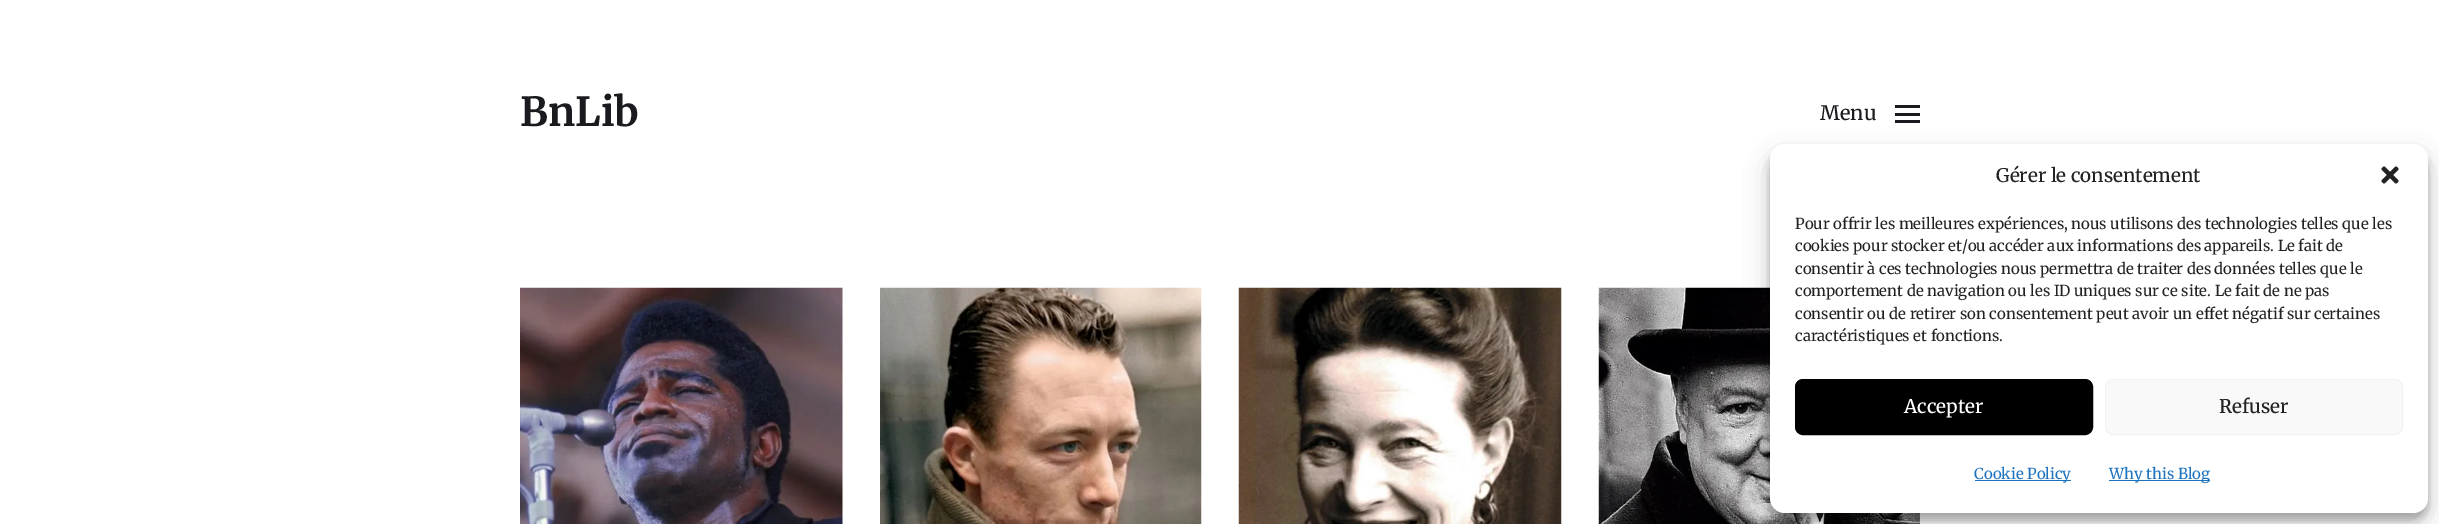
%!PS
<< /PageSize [2439 524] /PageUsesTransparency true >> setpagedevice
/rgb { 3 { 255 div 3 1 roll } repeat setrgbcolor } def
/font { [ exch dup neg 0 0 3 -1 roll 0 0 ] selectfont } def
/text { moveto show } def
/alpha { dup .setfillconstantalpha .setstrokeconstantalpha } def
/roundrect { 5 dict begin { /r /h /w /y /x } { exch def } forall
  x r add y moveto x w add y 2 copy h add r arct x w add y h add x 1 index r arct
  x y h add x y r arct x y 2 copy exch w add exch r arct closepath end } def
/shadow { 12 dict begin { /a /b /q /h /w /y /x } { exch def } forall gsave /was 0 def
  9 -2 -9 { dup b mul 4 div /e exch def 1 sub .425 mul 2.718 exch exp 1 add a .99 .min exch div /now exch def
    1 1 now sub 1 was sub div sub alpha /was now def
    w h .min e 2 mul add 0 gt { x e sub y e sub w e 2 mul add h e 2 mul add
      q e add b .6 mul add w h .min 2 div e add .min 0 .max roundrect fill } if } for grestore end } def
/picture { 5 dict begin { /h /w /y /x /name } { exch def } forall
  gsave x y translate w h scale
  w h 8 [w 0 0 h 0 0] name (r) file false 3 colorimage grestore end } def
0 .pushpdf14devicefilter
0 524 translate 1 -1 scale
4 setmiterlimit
255 255 255 rgb
0 0 2439 524 rectfill
26 27 31 rgb
1895 105 25 3 rectfill
1895 113 25 3 rectfill
1895 120 25 3 rectfill
(img_01.rgb) 520 287 323 237 picture
(img_02.rgb) 880 287 322 237 picture
(img_03.rgb) 1238 287 324 237 picture
(img_04.rgb) 1598 287 322 237 picture
0 0 0 rgb
1770 151 658 369 15 4 0.23 shadow
1770 156 658 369 15 12.5 0.19 shadow
255 255 255 rgb
1770 144 658 369 15 roundrect fill
(img_05.rgb) 2381 166 18 18 picture
0 0 0 rgb
1795.5 379.5 297 55 7.5 roundrect gsave fill grestore
stroke
249 249 249 rgb
2105.5 379.5 297 55 7.5 roundrect gsave fill grestore
242 242 242 rgb
stroke
30 115 190 rgb
1975 480 96 1 rectfill
2109 480 101 1 rectfill
/Merriweather-Bold 40 font
26 27 31 rgb
(BnLib) 520 126 text
/Merriweather-Medium 20 font
(Menu) 1820 120 text
/Merriweather-Medium 18.75 font
34 34 34 rgb
(Gérer le consentement) 1996 182 text
/Merriweather-Regular 15 font
(Pour offrir les meilleures expériences, nous utilisons des technologies telles que les) 1795 229 text
(cookies pour stocker et/ou accéder aux informations des appareils. Le fait de) 1795 251 text
(consentir à ces technologies nous permettra de traiter des données telles que le) 1795 274 text
(comportement de navigation ou les ID uniques sur ce site. Le fait de ne pas) 1795 296 text
(consentir ou de retirer son consentement peut avoir un effet négatif sur certaines) 1795 319 text
(caractéristiques et fonctions.) 1795 341 text
/Merriweather-Medium 18.75 font
255 255 255 rgb
(Accepter) 1904 413 text
34 34 34 rgb
(Refuser) 2219 413 text
/Merriweather-Regular 15 font
30 115 190 rgb
(Cookie Policy) 1974 479 text
(Why this Blog) 2109 479 text
.poppdf14devicefilter showpage
